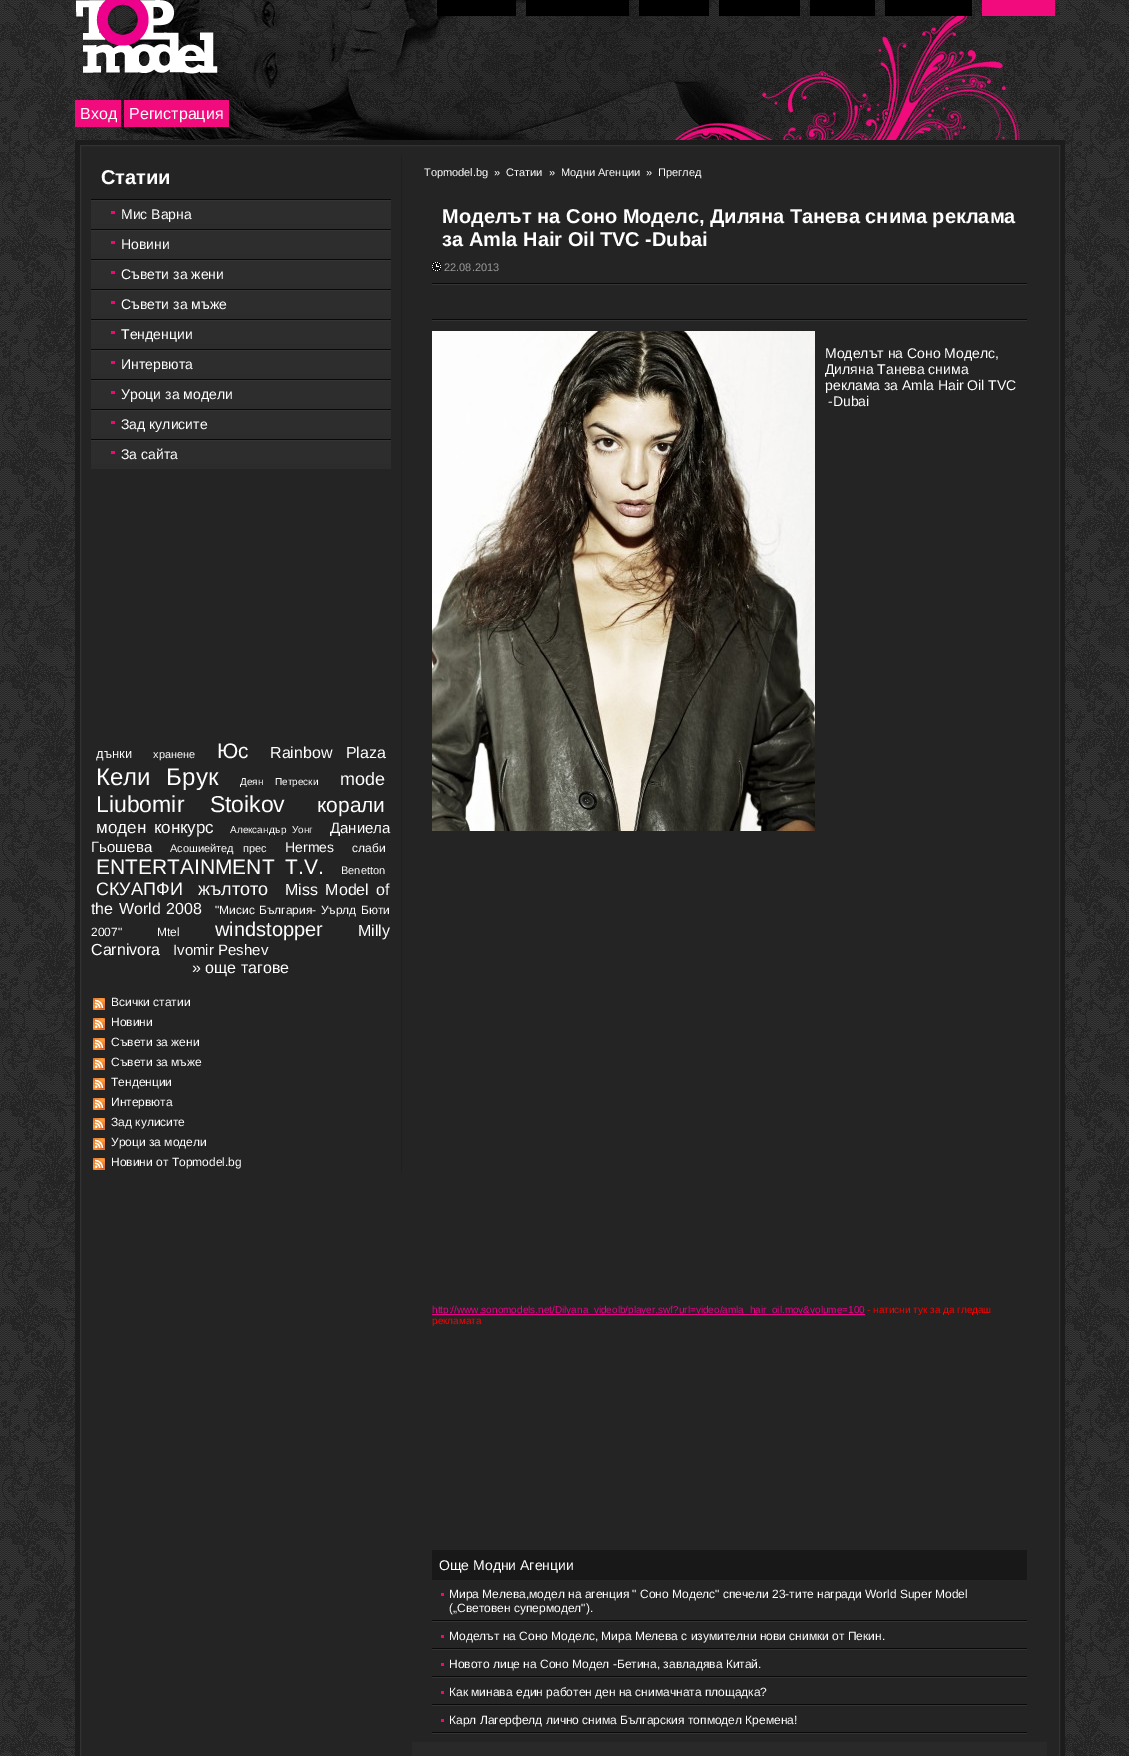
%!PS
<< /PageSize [1129 1756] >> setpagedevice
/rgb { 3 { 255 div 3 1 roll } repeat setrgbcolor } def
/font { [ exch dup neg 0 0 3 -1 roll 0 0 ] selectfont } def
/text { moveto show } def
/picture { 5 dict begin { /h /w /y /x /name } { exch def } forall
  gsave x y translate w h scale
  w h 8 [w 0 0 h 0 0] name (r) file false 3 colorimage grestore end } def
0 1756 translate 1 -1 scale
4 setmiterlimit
255 255 255 rgb
0 0 1129 1756 rectfill
(img_01.rgb) 0 0 1129 1756 picture
(img_02.rgb) 98 0 957 140 picture
(img_03.rgb) 76 0 142 74 picture
0 0 0 rgb
437 0 79 16 rectfill
526 0 103 16 rectfill
639 0 70 16 rectfill
719 0 81 16 rectfill
810 0 65 16 rectfill
885 0 87 16 rectfill
241 11 125 rgb
982 0 73 16 rectfill
75 100 46 27 rectfill
124 100 105 27 rectfill
28 28 28 rgb
75 140 990 1616 rectfill
36 36 36 rgb
80.5 145.5 moveto 979 0 rlineto 0 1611 rlineto -979 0 rlineto closepath gsave fill grestore
50 50 50 rgb
stroke
31 31 31 rgb
401 156 1 1016 rectfill
(img_04.rgb) 91 199 300 30 picture
255 0 117 rgb
111 211 4 3 rectfill
(img_04.rgb) 91 229 300 30 picture
111 241 4 3 rectfill
(img_04.rgb) 91 259 300 30 picture
111 271 4 3 rectfill
(img_04.rgb) 91 289 300 30 picture
111 301 4 3 rectfill
(img_04.rgb) 91 319 300 30 picture
111 331 4 3 rectfill
(img_04.rgb) 91 349 300 30 picture
111 361 4 3 rectfill
(img_04.rgb) 91 379 300 30 picture
111 391 4 3 rectfill
(img_04.rgb) 91 409 300 30 picture
111 421 4 3 rectfill
(img_04.rgb) 91 439 300 30 picture
111 451 4 3 rectfill
(img_05.rgb) 93 998 12 12 picture
(img_05.rgb) 93 1018 12 12 picture
(img_05.rgb) 93 1038 12 12 picture
(img_05.rgb) 93 1058 12 12 picture
(img_05.rgb) 93 1078 12 12 picture
(img_05.rgb) 93 1098 12 12 picture
(img_05.rgb) 93 1118 12 12 picture
(img_05.rgb) 93 1138 12 12 picture
(img_05.rgb) 93 1158 12 12 picture
41 41 41 rgb
412 1742 635 14 rectfill
(img_06.rgb) 432 262 9 9 picture
(img_07.rgb) 432 283 595 2 picture
(img_07.rgb) 432 319 595 2 picture
(img_08.rgb) 432 331 383 500 picture
236 0 140 rgb
432 1314 433 1 rectfill
24 24 24 rgb
432 1550 595 30 rectfill
(img_07.rgb) 432 1620 595 2 picture
255 0 117 rgb
441 1593 3 3 rectfill
(img_07.rgb) 432 1648 595 2 picture
441 1635 3 3 rectfill
(img_07.rgb) 432 1676 595 2 picture
441 1663 3 3 rectfill
(img_07.rgb) 432 1704 595 2 picture
441 1691 3 3 rectfill
(img_07.rgb) 432 1732 595 2 picture
441 1719 3 3 rectfill
/LiberationSans-Regular 16 font
255 255 255 rgb
(Вход) 80 119 text
(Регистрация) 129 119 text
/LiberationSans-Bold 20 font
(Статии) 101 184 text
/LiberationSans-Regular 14 font
(Мис Варна) 121 219 text
(Новини) 121 249 text
(Съвети за жени) 121 279 text
(Съвети за мъже) 121 309 text
(Тенденции) 121 339 text
(Интервюта) 121 369 text
(Уроци за модели) 121 399 text
(Зад кулисите) 121 429 text
(За сайта) 121 459 text
/LiberationSans-Regular 13 font
(дънки) 96 758 text
/LiberationSans-Regular 11 font
(хранене) 153 758 text
/LiberationSans-Regular 21 font
(Юс) 217 758 text
/LiberationSans-Regular 16 font
270 758 moveto 9 0 32 (Rainbow Plaza) widthshow
/LiberationSans-Regular 24 font
96 785 moveto 9 0 32 (Кели Брук) widthshow
/LiberationSans-Regular 10 font
240 785 moveto 9 0 32 (Деян Петрески) widthshow
/LiberationSans-Regular 18 font
(mode) 340 785 text
/LiberationSans-Regular 23 font
96 812 moveto 19 0 32 (Liubomir Stoikov) widthshow
/LiberationSans-Regular 21 font
(корали) 317 812 text
/LiberationSans-Regular 17 font
96 833 moveto 3 0 32 (моден конкурс) widthshow
/LiberationSans-Regular 10 font
230 833 moveto 3 0 32 (Александър Уонг) widthshow
/LiberationSans-Regular 15 font
(Даниела) 330 833 text
(Гьошева) 91 852 text
/LiberationSans-Regular 11 font
170 852 moveto 6 0 32 (Асошиейтед прес) widthshow
/LiberationSans-Regular 14 font
(Hermes) 285 852 text
/LiberationSans-Regular 12 font
(слаби) 352 852 text
/LiberationSans-Regular 21 font
96 874 moveto 5 0 32 (ENTERTAINMENT T.V.) widthshow
/LiberationSans-Regular 11 font
(Benetton) 341 874 text
/LiberationSans-Regular 18 font
(СКУАПФИ) 96 895 text
(жълтото) 198 895 text
/LiberationSans-Regular 16 font
285 895 moveto 3 0 32 (Miss Model of) widthshow
91 914 moveto 1 0 32 (the World 2008) widthshow
/LiberationSans-Regular 12 font
215 914 moveto 1 0 32 ("Мисис България- Уърлд Бюти) widthshow
(2007") 91 936 text
(Mtel) 157 936 text
/LiberationSans-Regular 20 font
(windstopper) 215 936 text
/LiberationSans-Regular 16 font
(Milly) 358 936 text
(Carnivora) 91 955 text
/LiberationSans-Regular 15 font
(Ivomir Peshev) 173 955 text
/LiberationSans-Regular 16 font
(» още тагове) 192 973 text
/LiberationSans-Regular 12 font
(Всички статии) 111 1006 text
(Новини) 111 1026 text
(Съвети за жени) 111 1046 text
(Съвети за мъже) 111 1066 text
(Тенденции) 111 1086 text
(Интервюта) 111 1106 text
(Зад кулисите) 111 1126 text
(Уроци за модели) 111 1146 text
(Новини от Topmodel.bg) 111 1166 text
/LiberationSans-Regular 11 font
(Topmodel.bg) 424 176 text
(») 494 176 text
(Статии) 506 176 text
(») 549 176 text
(Модни Агенции) 561 176 text
(»  Преглед) 646 176 text
/LiberationSans-Bold 20 font
(Моделът на Соно Моделс, Диляна Танева снима реклама) 442 223 text
(за Amla Hair Oil TVC -Dubai) 442 246 text
/LiberationSans-Regular 11 font
153 153 153 rgb
(22.08.2013) 444 271 text
/LiberationSans-Regular 14 font
255 255 255 rgb
(Моделът на Соно Моделс,) 825 358 text
(Диляна Танева снима) 825 374 text
(реклама за Amla Hair Oil TVC) 825 390 text
(-Dubai) 828 406 text
/LiberationSans-Regular 10 font
236 0 140 rgb
(http://www.sonomodels.net/Dilyana_videolb/player.swf?url=video/amla_hair_oil.mov&volume=100) 432 1313 text
255 0 0 rgb
(- натисни тук за да гледаш) 867 1313 text
(рекламата) 432 1324 text
/LiberationSans-Regular 14 font
255 255 255 rgb
(Още Модни Агенции) 439 1570 text
/LiberationSans-Regular 12 font
(Мира Мелева,модел на агенция " Соно Моделс" спечели 23-тите награди World Super Model) 449 1598 text
(\(„Световен супермодел"\).) 449 1612 text
(Моделът на Соно Моделс, Мира Мелева с изумителни нови снимки от Пекин.) 449 1640 text
(Новото лице на Соно Модел -Бетина, завладява Китай.) 449 1668 text
(Как минава един работен ден на снимачната площадка?) 449 1696 text
(Карл Лагерфелд лично снима Българския топмодел Кремена!) 449 1724 text
showpage
